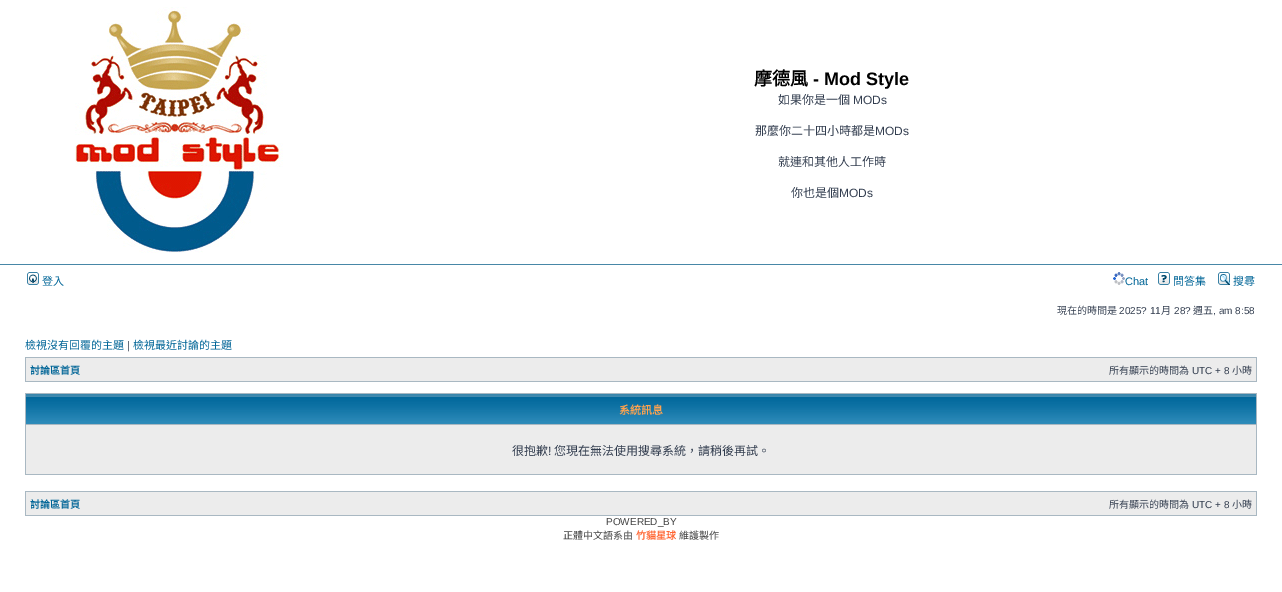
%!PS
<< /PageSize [1282 592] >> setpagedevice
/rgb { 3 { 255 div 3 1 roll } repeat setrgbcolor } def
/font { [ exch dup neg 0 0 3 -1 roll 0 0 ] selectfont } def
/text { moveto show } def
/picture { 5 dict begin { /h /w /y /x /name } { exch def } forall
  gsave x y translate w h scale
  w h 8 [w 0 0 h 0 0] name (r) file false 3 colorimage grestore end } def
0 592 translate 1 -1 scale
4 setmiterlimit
255 255 255 rgb
0 0 1282 592 rectfill
71 135 167 rgb
0 264 1282 1 rectfill
(img_01.rgb) 75 7 208 246 picture
(img_02.rgb) 27 272 12 13 picture
(img_03.rgb) 1113 272 12 13 picture
(img_04.rgb) 1158 272 12 13 picture
(img_05.rgb) 1218 272 12 13 picture
169 184 194 rgb
25 357 1232 25 rectfill
236 236 236 rgb
26 358 1230 23 rectfill
169 184 194 rgb
25 393 1232 82 rectfill
(img_06.rgb) 26 394 1230 30 picture
236 236 236 rgb
26 425 1230 49 rectfill
169 184 194 rgb
25 491 1232 25 rectfill
236 236 236 rgb
26 492 1230 23 rectfill
/NotoSansCJKTC-Bold 18 font
0 0 0 rgb
(摩德風) 754 85 text
/LiberationSans-Bold 18 font
(- Mod Style) 813 85 text
/NotoSansCJKTC-Regular 12 font
50 61 79 rgb
(如果你是一個) 778 104 text
/LiberationSans-Regular 12 font
(MODs) 853 104 text
/NotoSansCJKTC-Regular 12 font
(那麼你二十四小時都是) 755 135 text
/LiberationSans-Regular 12 font
(MODs) 875 135 text
/NotoSansCJKTC-Regular 12 font
(就連和其他人工作時) 778 166 text
(你也是個) 791 197 text
/LiberationSans-Regular 12 font
(MODs) 839 197 text
/NotoSansCJKTC-Regular 11 font
0 101 151 rgb
(登入) 42 285 text
/LiberationSans-Regular 11 font
(Chat) 1125 285 text
/NotoSansCJKTC-Regular 11 font
(問答集) 1173 285 text
(搜尋) 1233 285 text
/NotoSansCJKTC-Regular 10 font
50 61 79 rgb
(現在的時間是) 1057 314 text
/LiberationSans-Regular 10 font
(2025? 11) 1119 314 text
/NotoSansCJKTC-Regular 10 font
(月) 1161 314 text
/LiberationSans-Regular 10 font
(28?) 1174 314 text
/NotoSansCJKTC-Regular 10 font
(週五) 1193 314 text
/LiberationSans-Regular 10 font
(, am 8:58) 1213 314 text
/NotoSansCJKTC-Regular 11 font
0 101 151 rgb
(檢視沒有回覆的主題) 25 349 text
/LiberationSans-Regular 11 font
50 61 79 rgb
(|) 127 349 text
/NotoSansCJKTC-Regular 11 font
0 101 151 rgb
(檢視最近討論的主題) 133 349 text
/NotoSansCJKTC-Bold 10 font
(討論區首頁) 30 374 text
/NotoSansCJKTC-Regular 10 font
50 61 79 rgb
(所有顯示的時間為) 1109 374 text
/LiberationSans-Regular 10 font
(UTC + 8) 1192 374 text
/NotoSansCJKTC-Regular 10 font
(小時) 1232 374 text
/NotoSansCJKTC-Bold 11 font
255 163 79 rgb
(系統訊息) 619 414 text
/NotoSansCJKTC-Regular 12 font
50 61 79 rgb
(很抱歉) 512 455 text
/LiberationSans-Regular 12 font
(!) 548 455 text
/NotoSansCJKTC-Regular 12 font
(您現在無法使用搜尋系統，請稍後再試。) 554 455 text
/NotoSansCJKTC-Bold 10 font
0 101 151 rgb
(討論區首頁) 30 508 text
/NotoSansCJKTC-Regular 10 font
50 61 79 rgb
(所有顯示的時間為) 1109 508 text
/LiberationSans-Regular 10 font
(UTC + 8) 1192 508 text
/NotoSansCJKTC-Regular 10 font
(小時) 1232 508 text
/LiberationSans-Regular 10 font
68 68 68 rgb
(POWERED_BY) 606 525 text
/NotoSansCJKTC-Regular 10 font
(正體中文語系由) 563 539 text
/NotoSansCJKTC-Bold 10 font
255 102 51 rgb
(竹貓星球) 636 539 text
/NotoSansCJKTC-Regular 10 font
68 68 68 rgb
(維護製作) 679 539 text
showpage
